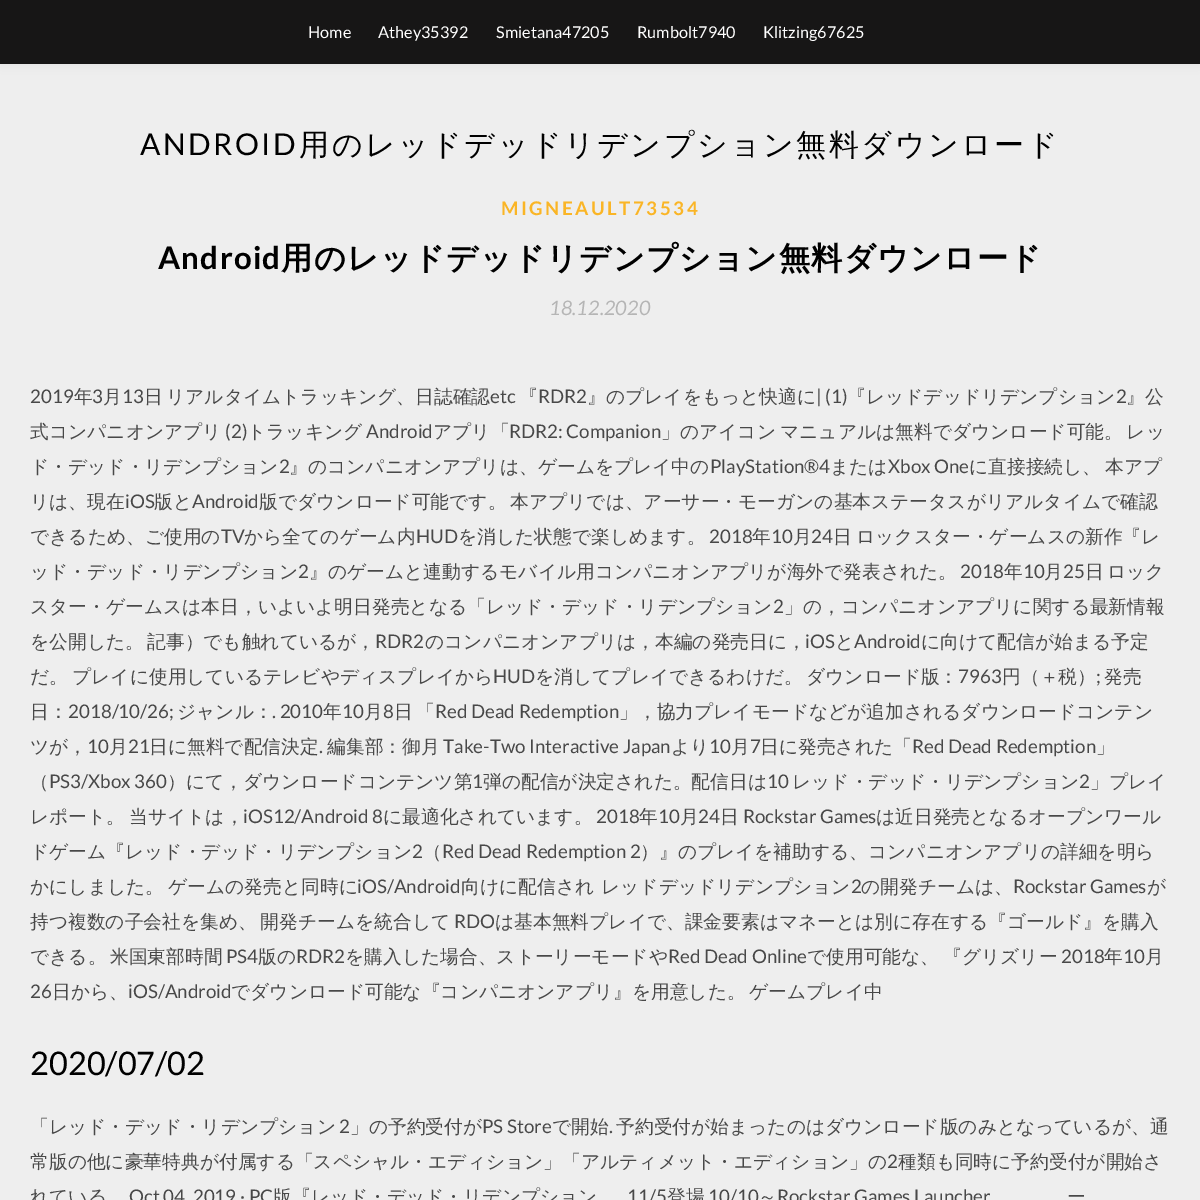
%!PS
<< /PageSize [1200 1200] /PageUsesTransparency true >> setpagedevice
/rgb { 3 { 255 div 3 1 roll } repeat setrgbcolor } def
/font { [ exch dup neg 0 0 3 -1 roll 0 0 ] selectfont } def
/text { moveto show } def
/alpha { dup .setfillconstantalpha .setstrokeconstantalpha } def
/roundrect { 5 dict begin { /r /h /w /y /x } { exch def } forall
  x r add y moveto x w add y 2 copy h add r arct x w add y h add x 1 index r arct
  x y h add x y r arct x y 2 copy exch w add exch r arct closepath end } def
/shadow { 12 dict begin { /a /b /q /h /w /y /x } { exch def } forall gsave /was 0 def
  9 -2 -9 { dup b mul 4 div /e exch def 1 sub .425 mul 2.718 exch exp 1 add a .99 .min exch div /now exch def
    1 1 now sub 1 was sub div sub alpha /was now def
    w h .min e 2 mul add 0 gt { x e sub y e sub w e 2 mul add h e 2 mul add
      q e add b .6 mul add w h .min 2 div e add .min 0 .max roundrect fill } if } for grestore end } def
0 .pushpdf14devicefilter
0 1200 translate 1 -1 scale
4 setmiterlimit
238 238 238 rgb
0 0 1200 1200 rectfill
0 0 0 rgb
0 0 1200 64 0 6 0.05 shadow
23 22 22 rgb
0 0 1200 64 rectfill
/Lato-Regular 16.25 font
255 255 255 rgb
(Home) 308 38 text
(Athey35392) 378 38 text
(Smietana47205) 496 38 text
(Rumbolt7940) 637 38 text
(Klitzing67625) 763 38 text
/Lato-Regular 30 font
0 0 0 rgb
140 155 moveto 2.5 0 (ANDROID) ashow
/WenQuanYiZenHei-Medium 30 font
299 155 moveto 2.5 0 (用のレッドデッドリデンプション無料ダウンロード) ashow
/Lato-Bold 18.75 font
250 181 38 rgb
501 215 moveto 2.5 0 (MIGNEAULT73534) ashow
/Lato-Bold 31.25 font
0 0 0 rgb
158 269 moveto 1.25 0 (Android) ashow
/WenQuanYiZenHei-Bold 31.25 font
281 269 moveto 1.25 0 (用のレッドデッドリデンプション無料ダウンロード) ashow
/Lato-Italic 20 font
181 181 181 rgb
(18.12.2020) 549 315 text
/Lato-Regular 18.75 font
72 72 72 rgb
(2019) 30 403 text
/WenQuanYiZenHei-Medium 18.75 font
(年) 74 403 text
/Lato-Regular 18.75 font
(3) 92 403 text
/WenQuanYiZenHei-Medium 18.75 font
(月) 103 403 text
/Lato-Regular 18.75 font
(13) 122 403 text
/WenQuanYiZenHei-Medium 18.75 font
(日) 144 403 text
(リアルタイムトラッキング、日誌確認) 166 403 text
/Lato-Regular 18.75 font
(etc) 490 403 text
/WenQuanYiZenHei-Medium 18.75 font
(『) 519 403 text
/Lato-Regular 18.75 font
(RDR2) 538 403 text
/WenQuanYiZenHei-Medium 18.75 font
(』のプレイをもっと快適に) 587 403 text
/Lato-Regular 18.75 font
(| \(1\)) 816 403 text
/WenQuanYiZenHei-Medium 18.75 font
(『レッドデッドリデンプション) 847 403 text
/Lato-Regular 18.75 font
(2) 1116 403 text
/WenQuanYiZenHei-Medium 18.75 font
(』公) 1126 403 text
(式コンパニオンアプリ) 30 438 text
/Lato-Regular 18.75 font
(\(2\)) 225 438 text
/WenQuanYiZenHei-Medium 18.75 font
(トラッキング) 247 438 text
/Lato-Regular 18.75 font
(Android) 366 438 text
/WenQuanYiZenHei-Medium 18.75 font
(アプリ「) 433 438 text
/Lato-Regular 18.75 font
(RDR2: Companion) 509 438 text
/WenQuanYiZenHei-Medium 18.75 font
(」のアイコン) 661 438 text
780 438 moveto -2 0 32 (マニュアルは無料でダウンロード可能。 レッ) widthshow
(ド・デッド・リデンプション) 30 473 text
/Lato-Regular 18.75 font
(2) 279 473 text
/WenQuanYiZenHei-Medium 18.75 font
(』のコンパニオンアプリは、ゲームをプレイ中の) 289 473 text
/Lato-Regular 18.75 font
(PlayStation®4) 710 473 text
/WenQuanYiZenHei-Medium 18.75 font
(または) 830 473 text
/Lato-Regular 18.75 font
(Xbox One) 888 473 text
/WenQuanYiZenHei-Medium 18.75 font
(に直接接続し、) 969 473 text
(本アプ) 1105 473 text
(リは、現在) 30 508 text
/Lato-Regular 18.75 font
(iOS) 125 508 text
/WenQuanYiZenHei-Medium 18.75 font
(版と) 154 508 text
/Lato-Regular 18.75 font
(Android) 192 508 text
/WenQuanYiZenHei-Medium 18.75 font
(版でダウンロード可能です。) 259 508 text
(本アプリでは、アーサー・モーガンの基本ステータスがリアルタイムで確認) 510 508 text
(できるため、ご使用の) 30 543 text
/Lato-Regular 18.75 font
(TV) 221 543 text
/WenQuanYiZenHei-Medium 18.75 font
(から全てのゲーム内) 244 543 text
/Lato-Regular 18.75 font
(HUD) 416 543 text
/WenQuanYiZenHei-Medium 18.75 font
(を消した状態で楽しめます。) 458 543 text
/Lato-Regular 18.75 font
(2018) 709 543 text
/WenQuanYiZenHei-Medium 18.75 font
(年) 752 543 text
/Lato-Regular 18.75 font
(10) 771 543 text
/WenQuanYiZenHei-Medium 18.75 font
(月) 793 543 text
/Lato-Regular 18.75 font
(24) 811 543 text
/WenQuanYiZenHei-Medium 18.75 font
(日) 833 543 text
(ロックスター・ゲームスの新作『レ) 856 543 text
(ッド・デッド・リデンプション) 30 578 text
/Lato-Regular 18.75 font
(2) 298 578 text
/WenQuanYiZenHei-Medium 18.75 font
(』のゲームと連動するモバイル用コンパニオンアプリが海外で発表された。) 309 578 text
/Lato-Regular 18.75 font
(2018) 960 578 text
/WenQuanYiZenHei-Medium 18.75 font
(年) 1004 578 text
/Lato-Regular 18.75 font
(10) 1023 578 text
/WenQuanYiZenHei-Medium 18.75 font
(月) 1044 578 text
/Lato-Regular 18.75 font
(25) 1063 578 text
/WenQuanYiZenHei-Medium 18.75 font
(日) 1085 578 text
(ロック) 1107 578 text
(スター・ゲームスは本日，いよいよ明日発売となる「レッド・デッド・リデンプション) 30 613 text
/Lato-Regular 18.75 font
(2) 773 613 text
/WenQuanYiZenHei-Medium 18.75 font
(」の，コンパニオンアプリに関する最新情報) 784 613 text
(を公開した。) 30 648 text
(記事）でも触れているが，) 147 648 text
/Lato-Regular 18.75 font
(RDR2) 375 648 text
/WenQuanYiZenHei-Medium 18.75 font
(のコンパニオンアプリは，本編の発売日に，) 425 648 text
/Lato-Regular 18.75 font
(iOS) 805 648 text
/WenQuanYiZenHei-Medium 18.75 font
(と) 835 648 text
/Lato-Regular 18.75 font
(Android) 854 648 text
/WenQuanYiZenHei-Medium 18.75 font
(に向けて配信が始まる予定) 921 648 text
(だ。) 30 683 text
(プレイに使用しているテレビやディスプレイから) 72 683 text
/Lato-Regular 18.75 font
(HUD) 493 683 text
/WenQuanYiZenHei-Medium 18.75 font
(を消してプレイできるわけだ。) 535 683 text
(ダウンロード版：) 806 683 text
/Lato-Regular 18.75 font
(7963) 958 683 text
/WenQuanYiZenHei-Medium 18.75 font
(円（＋税）) 1002 683 text
/Lato-Regular 18.75 font
(;) 1096 683 text
/WenQuanYiZenHei-Medium 18.75 font
(発売) 1104 683 text
(日：) 30 718 text
/Lato-Regular 18.75 font
(2018/10/26;) 68 718 text
/WenQuanYiZenHei-Medium 18.75 font
(ジャンル：) 177 718 text
/Lato-Regular 18.75 font
(. 2010) 272 718 text
/WenQuanYiZenHei-Medium 18.75 font
(年) 323 718 text
/Lato-Regular 18.75 font
(10) 342 718 text
/WenQuanYiZenHei-Medium 18.75 font
(月) 364 718 text
/Lato-Regular 18.75 font
(8) 383 718 text
/WenQuanYiZenHei-Medium 18.75 font
(日) 394 718 text
(「) 416 718 text
/Lato-Regular 18.75 font
(Red Dead Redemption) 435 718 text
/WenQuanYiZenHei-Medium 18.75 font
(」，協力プレイモードなどが追加されるダウンロードコンテン) 619 718 text
(ツが，) 30 753 text
/Lato-Regular 18.75 font
(10) 87 753 text
/WenQuanYiZenHei-Medium 18.75 font
(月) 109 753 text
/Lato-Regular 18.75 font
(21) 128 753 text
/WenQuanYiZenHei-Medium 18.75 font
(日に無料で配信決定) 149 753 text
/Lato-Regular 18.75 font
(.) 319 753 text
/WenQuanYiZenHei-Medium 18.75 font
(編集部：御月) 327 753 text
/Lato-Regular 18.75 font
(Take-Two Interactive Japan) 443 753 text
/WenQuanYiZenHei-Medium 18.75 font
(より) 671 753 text
/Lato-Regular 18.75 font
(10) 709 753 text
/WenQuanYiZenHei-Medium 18.75 font
(月) 731 753 text
/Lato-Regular 18.75 font
(7) 750 753 text
/WenQuanYiZenHei-Medium 18.75 font
(日に発売された「) 760 753 text
/Lato-Regular 18.75 font
(Red Dead Redemption) 912 753 text
/WenQuanYiZenHei-Medium 18.75 font
(」) 1096 753 text
(（) 30 788 text
/Lato-Regular 18.75 font
(PS3/Xbox 360) 49 788 text
/WenQuanYiZenHei-Medium 18.75 font
(）にて，ダウンロードコンテンツ第) 167 788 text
/Lato-Regular 18.75 font
(1) 472 788 text
/WenQuanYiZenHei-Medium 18.75 font
(弾の配信が決定された。配信日は) 483 788 text
/Lato-Regular 18.75 font
(10) 767 788 text
/WenQuanYiZenHei-Medium 18.75 font
(レッド・デッド・リデンプション) 792 788 text
/Lato-Regular 18.75 font
(2) 1079 788 text
/WenQuanYiZenHei-Medium 18.75 font
(」プレイ) 1090 788 text
(レポート。) 30 823 text
(当サイトは，) 129 823 text
/Lato-Regular 18.75 font
(iOS12/Android 8) 243 823 text
/WenQuanYiZenHei-Medium 18.75 font
(に最適化されています。) 383 823 text
/Lato-Regular 18.75 font
(2018) 596 823 text
/WenQuanYiZenHei-Medium 18.75 font
(年) 639 823 text
/Lato-Regular 18.75 font
(10) 658 823 text
/WenQuanYiZenHei-Medium 18.75 font
(月) 680 823 text
/Lato-Regular 18.75 font
(24) 698 823 text
/WenQuanYiZenHei-Medium 18.75 font
(日) 720 823 text
/Lato-Regular 18.75 font
(Rockstar Games) 743 823 text
/WenQuanYiZenHei-Medium 18.75 font
(は近日発売となるオープンワール) 876 823 text
(ドゲーム『レッド・デッド・リデンプション) 30 858 text
/Lato-Regular 18.75 font
(2) 412 858 text
/WenQuanYiZenHei-Medium 18.75 font
(（) 423 858 text
/Lato-Regular 18.75 font
(Red Dead Redemption 2) 442 858 text
/WenQuanYiZenHei-Medium 18.75 font
(）』のプレイを補助する、コンパニオンアプリの詳細を明ら) 640 858 text
(かにしました。) 30 893 text
(ゲームの発売と同時に) 168 893 text
/Lato-Regular 18.75 font
(iOS/Android) 357 893 text
/WenQuanYiZenHei-Medium 18.75 font
(向けに配信され) 461 893 text
(レッドデッドリデンプション) 601 893 text
/Lato-Regular 18.75 font
(2) 851 893 text
/WenQuanYiZenHei-Medium 18.75 font
(の開発チームは、) 861 893 text
/Lato-Regular 18.75 font
(Rockstar Games) 1013 893 text
/WenQuanYiZenHei-Medium 18.75 font
(が) 1147 893 text
30 928 moveto -2 0 32 (持つ複数の子会社を集め、 開発チームを統合して) widthshow
/Lato-Regular 18.75 font
(RDO) 454 928 text
/WenQuanYiZenHei-Medium 18.75 font
(は基本無料プレイで、課金要素はマネーとは別に存在する『ゴールド』を購入) 495 928 text
30 963 moveto -2 0 32 (できる。 米国東部時間) widthshow
/Lato-Regular 18.75 font
(PS4) 226 963 text
/WenQuanYiZenHei-Medium 18.75 font
(版の) 258 963 text
/Lato-Regular 18.75 font
(RDR2) 296 963 text
/WenQuanYiZenHei-Medium 18.75 font
(を購入した場合、ストーリーモードや) 345 963 text
/Lato-Regular 18.75 font
(Red Dead Online) 668 963 text
/WenQuanYiZenHei-Medium 18.75 font
(で使用可能な、) 807 963 text
(『グリズリー) 943 963 text
/Lato-Regular 18.75 font
(2018) 1061 963 text
/WenQuanYiZenHei-Medium 18.75 font
(年) 1104 963 text
/Lato-Regular 18.75 font
(10) 1123 963 text
/WenQuanYiZenHei-Medium 18.75 font
(月) 1145 963 text
/Lato-Regular 18.75 font
(26) 30 998 text
/WenQuanYiZenHei-Medium 18.75 font
(日から、) 52 998 text
/Lato-Regular 18.75 font
(iOS/Android) 128 998 text
/WenQuanYiZenHei-Medium 18.75 font
231 998 moveto -2 0 32 (でダウンロード可能な『コンパニオンアプリ』を用意した。 ゲームプレイ中) widthshow
/Lato-Regular 32.5 font
0 0 0 rgb
(2020/07/02) 30 1075 text
/WenQuanYiZenHei-Medium 18.75 font
72 72 72 rgb
(「レッド・デッド・リデンプション) 30 1133 text
/Lato-Regular 18.75 font
(2) 339 1133 text
/WenQuanYiZenHei-Medium 18.75 font
(」の予約受付が) 350 1133 text
/Lato-Regular 18.75 font
(PS Store) 482 1133 text
/WenQuanYiZenHei-Medium 18.75 font
(で開始) 552 1133 text
/Lato-Regular 18.75 font
(.) 609 1133 text
/WenQuanYiZenHei-Medium 18.75 font
(予約受付が始まったのはダウンロード版のみとなっているが、通) 616 1133 text
(常版の他に豪華特典が付属する「スペシャル・エディション」「アルティメット・エディション」の) 30 1168 text
/Lato-Regular 18.75 font
(2) 887 1168 text
/WenQuanYiZenHei-Medium 18.75 font
(種類も同時に予約受付が開始さ) 898 1168 text
(れている) 30 1203 text
/Lato-Regular 18.75 font
(Oct 04, 2019 · PC) 129 1203 text
/WenQuanYiZenHei-Medium 18.75 font
(版『レッド・デッド・リデンプション) 273 1203 text
/Lato-Regular 18.75 font
(11/5) 627 1203 text
/WenQuanYiZenHei-Medium 18.75 font
(登場) 667 1203 text
/Lato-Regular 18.75 font
(10/10) 708 1203 text
(Rockstar Games Launcher) 777 1203 text
/WenQuanYiZenHei-Medium 18.75 font
(ー) 1067 1203 text
(～) 758 1203 text
.poppdf14devicefilter showpage
